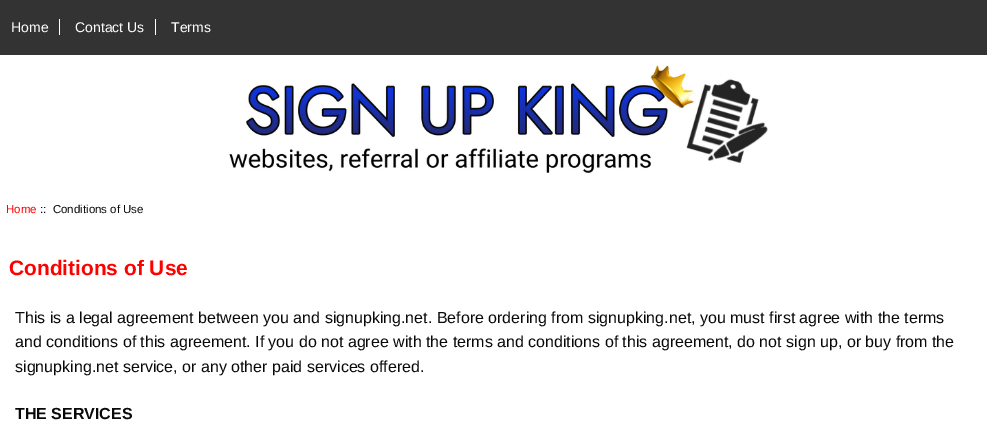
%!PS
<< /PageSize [987 429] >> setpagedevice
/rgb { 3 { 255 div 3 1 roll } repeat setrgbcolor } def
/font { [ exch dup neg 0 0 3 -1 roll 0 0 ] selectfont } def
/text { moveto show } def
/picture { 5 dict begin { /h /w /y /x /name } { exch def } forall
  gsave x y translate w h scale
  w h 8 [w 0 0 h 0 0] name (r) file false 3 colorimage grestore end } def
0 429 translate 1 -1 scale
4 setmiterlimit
255 255 255 rgb
0 0 987 429 rectfill
51 51 51 rgb
0 0 987 55 rectfill
255 255 255 rgb
59 19 1 16 rectfill
155 19 1 16 rectfill
(img_01.rgb) 229 65 539 109 picture
/LiberationSans-Regular 14 font
(Home) 11 32 text
(Contact Us) 75 32 text
(Terms) 171 32 text
/LiberationSans-Regular 11.5 font
255 0 0 rgb
(Home) 6 213 text
9 9 9 rgb
(::  Conditions of Use) 40 213 text
/LiberationSans-Bold 20.9 font
255 0 0 rgb
(Conditions of Use) 9 275 text
/LiberationSans-Regular 16 font
9 9 9 rgb
(This is a legal agreement between you and signupking.net. Before ordering from signupking.net, you must first agree with the terms) 15 323 text
(and conditions of this agreement. If you do not agree with the terms and conditions of this agreement, do not sign up, or buy from the) 15 347 text
(signupking.net service, or any other paid services offered.) 15 372 text
/LiberationSans-Bold 16 font
(THE SERVICES) 15 419 text
showpage
